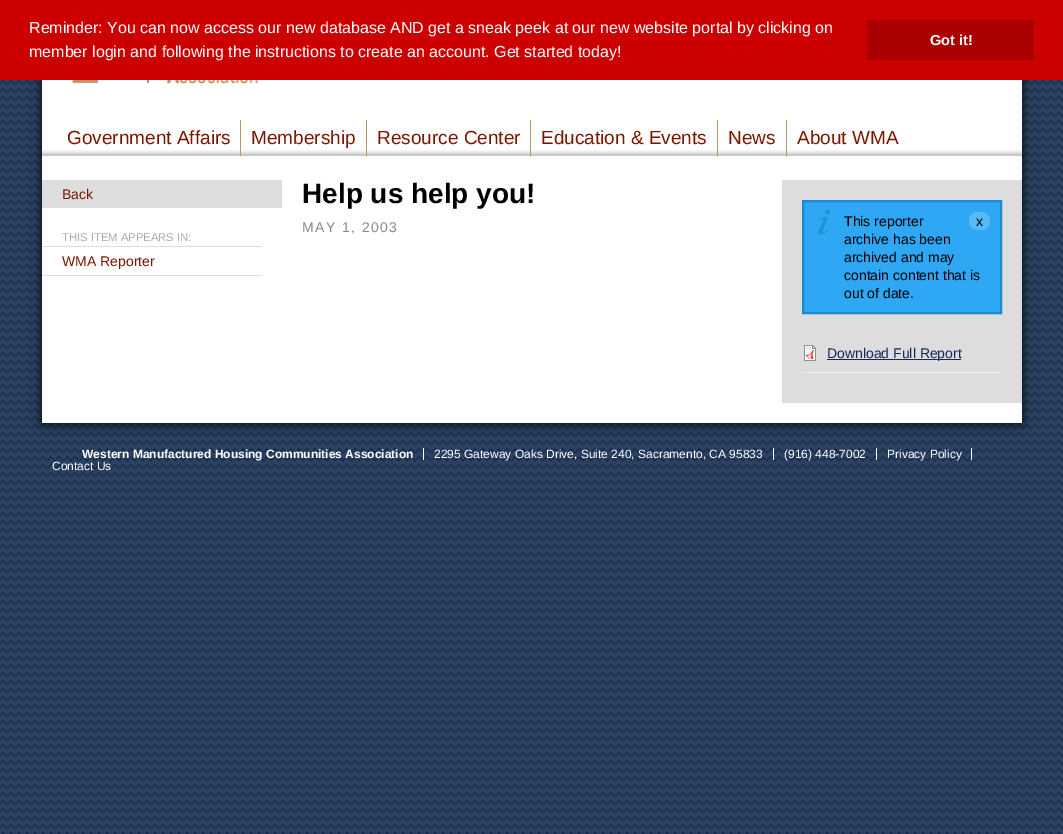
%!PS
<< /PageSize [1063 834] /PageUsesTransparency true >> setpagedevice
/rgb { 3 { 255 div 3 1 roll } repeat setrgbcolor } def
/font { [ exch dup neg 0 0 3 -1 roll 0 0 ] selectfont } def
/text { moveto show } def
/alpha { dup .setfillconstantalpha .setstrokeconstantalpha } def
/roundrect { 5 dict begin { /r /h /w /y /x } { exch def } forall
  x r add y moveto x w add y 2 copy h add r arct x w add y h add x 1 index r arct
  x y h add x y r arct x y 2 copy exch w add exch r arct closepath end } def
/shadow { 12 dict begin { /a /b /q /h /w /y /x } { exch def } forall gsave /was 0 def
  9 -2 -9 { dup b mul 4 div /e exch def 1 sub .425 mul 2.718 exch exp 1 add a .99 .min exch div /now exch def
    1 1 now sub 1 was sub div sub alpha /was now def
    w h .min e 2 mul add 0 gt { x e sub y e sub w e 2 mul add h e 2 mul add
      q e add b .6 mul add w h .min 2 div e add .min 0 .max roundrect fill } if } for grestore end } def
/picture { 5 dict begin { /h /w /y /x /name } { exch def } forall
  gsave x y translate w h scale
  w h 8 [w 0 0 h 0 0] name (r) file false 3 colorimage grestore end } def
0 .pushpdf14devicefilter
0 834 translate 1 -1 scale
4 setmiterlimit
255 255 255 rgb
0 0 1063 834 rectfill
(img_01.rgb) 0 80 1063 754 picture
0 0 0 rgb
42 0 980 423 0 5 1 shadow
204 0 0 rgb
0 0 1063 80 rectfill
170 0 2 rgb
867 20 167 40 rectfill
255 255 255 rgb
42 80 980 343 rectfill
(img_02.rgb) 59 80 391 4 picture
(img_03.rgb) 42 150 980 6 picture
184 151 98 rgb
240 120 1 36 rectfill
366 120 1 36 rectfill
530 120 1 36 rectfill
717 120 1 36 rectfill
786 120 1 36 rectfill
221 221 221 rgb
42 180 240 28 rectfill
42 246 220 1 rectfill
42 275 220 1 rectfill
782 180 240 223 rectfill
46 168 245 rgb
804 202 196 110 rectfill
(img_04.rgb) 818 209 12 26 picture
26 137 207 rgb
2 setlinewidth
803 201 198 112 rectstroke
88 185 247 rgb
969 212 21 18 9 roundrect fill
238 238 238 rgb
802 372 200 1 rectfill
(img_05.rgb) 804 345 12 16 picture
20 41 82 rgb
827 359 134 1 rectfill
255 255 255 rgb
423 448 1 12 rectfill
773 448 1 12 rectfill
876 448 1 12 rectfill
971 448 1 12 rectfill
/LiberationSans-Regular 16 font
(Reminder: You can now access our new database AND get a sneak peek at our new website portal by clicking on) 29 33 text
(member login and following the instructions to create an account. Get started today!) 29 57 text
/LiberationSans-Bold 14.5 font
(Got it!) 930 45 text
/LiberationSans-Regular 19 font
122 22 0 rgb
(Government Affairs) 67 144 text
(Membership) 251 144 text
(Resource Center) 377 144 text
(Education & Events) 541 144 text
(News) 728 144 text
(About WMA) 797 144 text
/LiberationSans-Regular 14 font
(Back) 62 199 text
/LiberationSans-Regular 11.25 font
170 170 170 rgb
(THIS ITEM APPEARS IN:) 62 241 text
/LiberationSans-Regular 14 font
122 22 0 rgb
(WMA Reporter) 62 266 text
/LiberationSans-Bold 28 font
0 0 0 rgb
(Help us help you!) 302 203 text
/LiberationSans-Regular 14 font
136 136 136 rgb
302 232 moveto 1.4 0 (MAY 1, 2003) ashow
0 0 0 rgb
(This reporter) 844 226 text
(x) 976 226 text
(archive has been) 844 244 text
(archived and may) 844 262 text
(contain content that is) 844 280 text
(out of date.) 844 298 text
20 41 82 rgb
(Download Full Report) 827 358 text
/LiberationSans-Bold 12 font
255 255 255 rgb
(Western Manufactured Housing Communities Association) 82 458 text
/LiberationSans-Regular 12 font
(2295 Gateway Oaks Drive, Suite 240, Sacramento, CA 95833) 434 458 text
(\(916\) 448-7002) 784 458 text
(Privacy Policy) 887 458 text
(Contact Us) 52 470 text
.poppdf14devicefilter showpage
